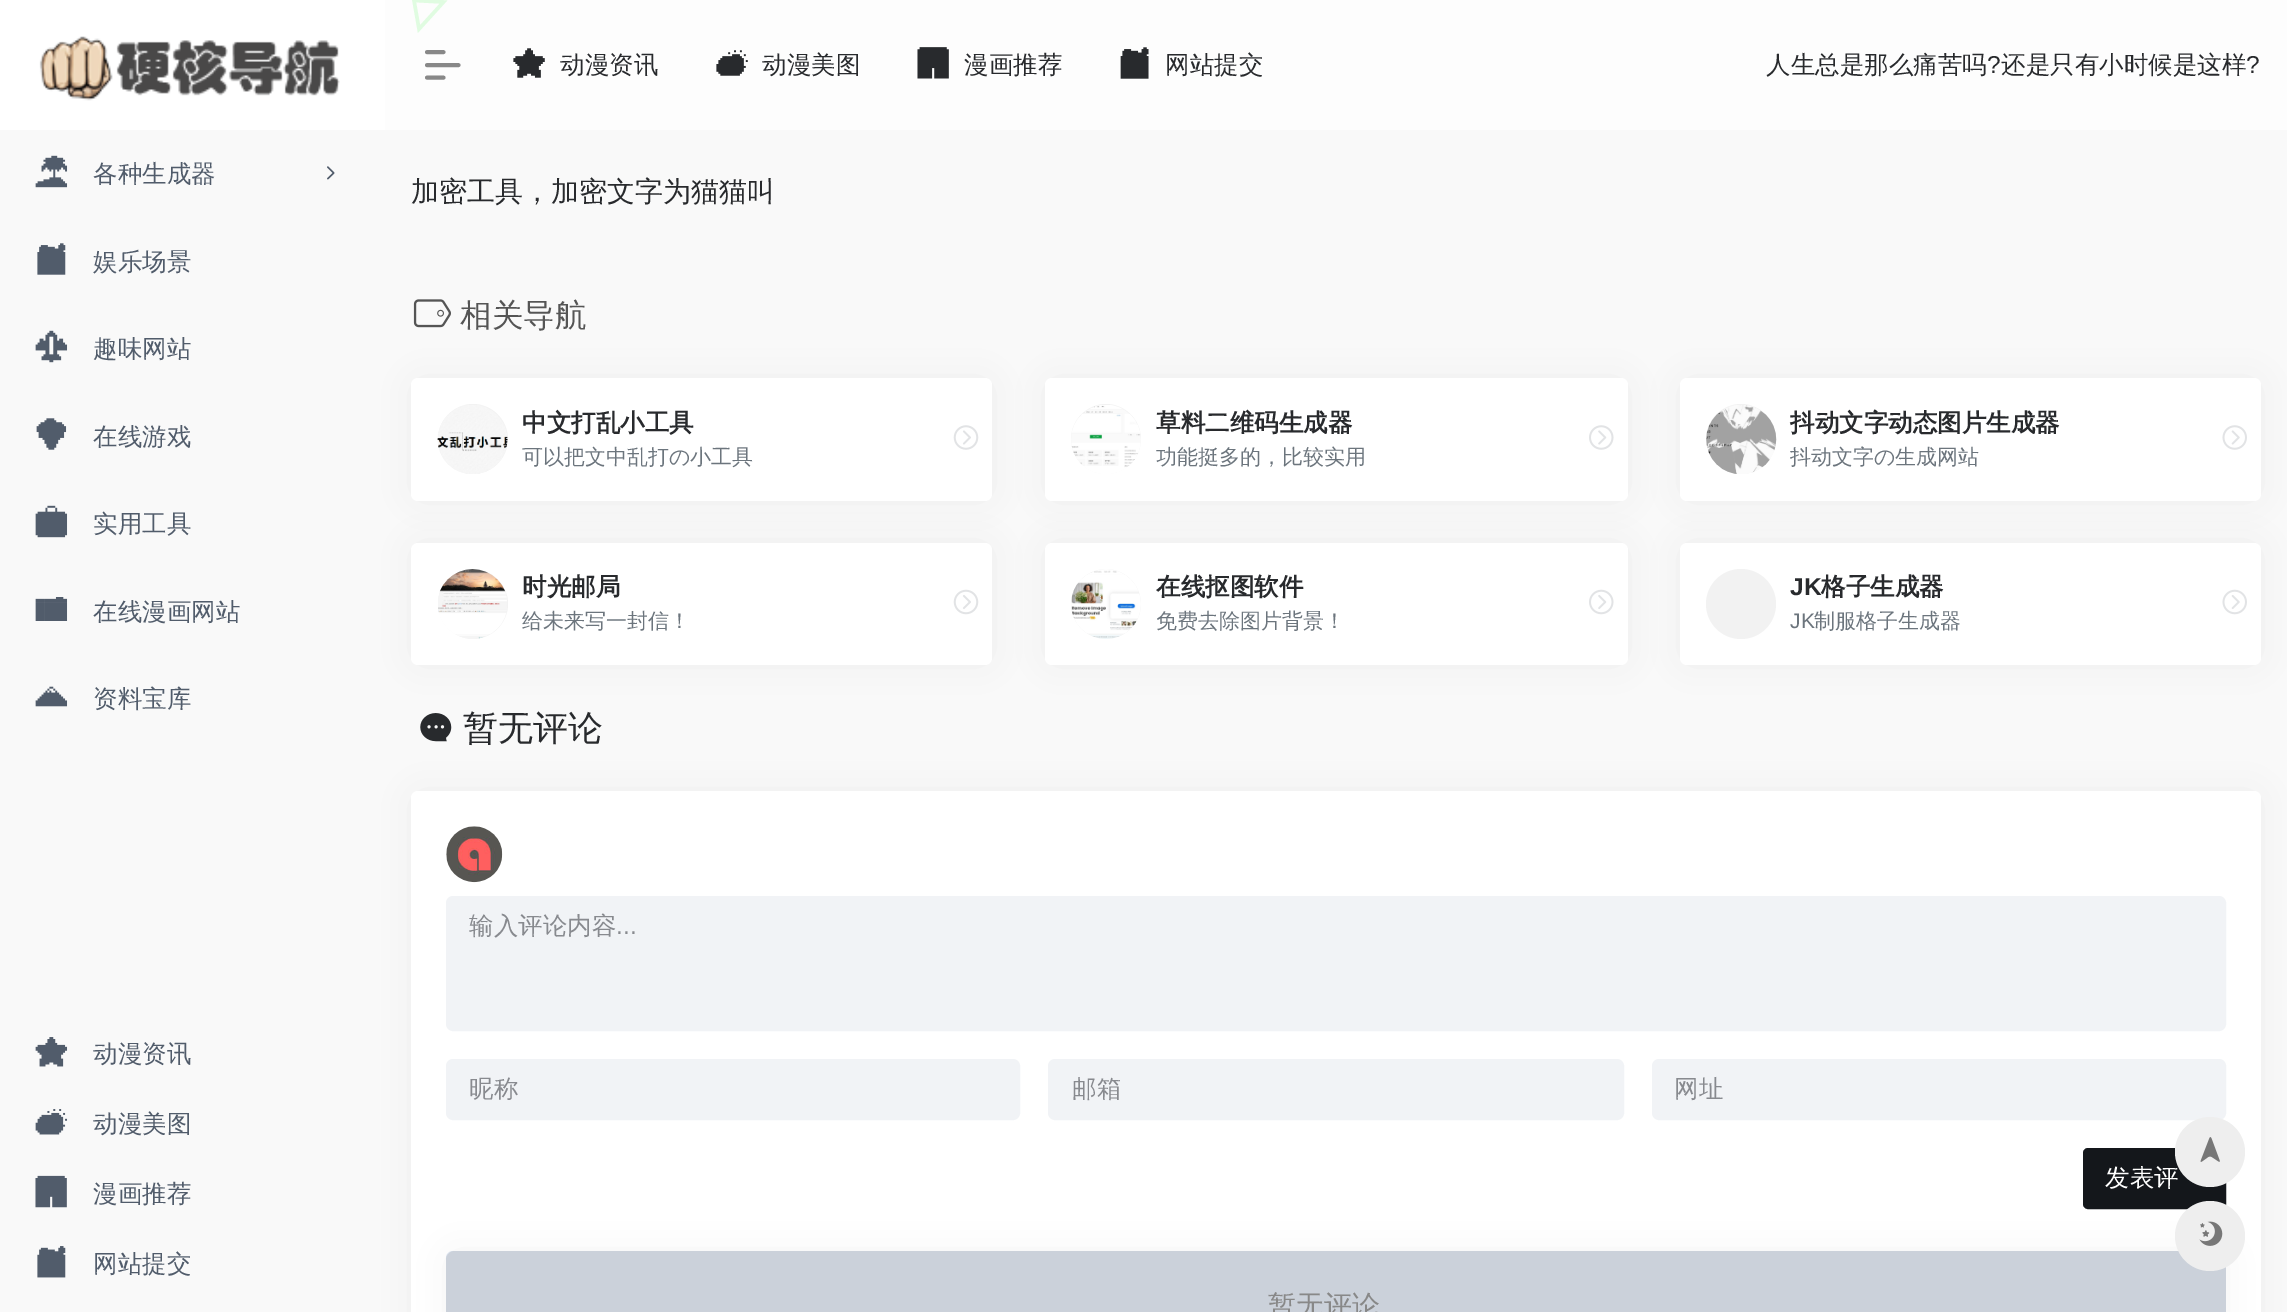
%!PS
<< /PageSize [2287 1312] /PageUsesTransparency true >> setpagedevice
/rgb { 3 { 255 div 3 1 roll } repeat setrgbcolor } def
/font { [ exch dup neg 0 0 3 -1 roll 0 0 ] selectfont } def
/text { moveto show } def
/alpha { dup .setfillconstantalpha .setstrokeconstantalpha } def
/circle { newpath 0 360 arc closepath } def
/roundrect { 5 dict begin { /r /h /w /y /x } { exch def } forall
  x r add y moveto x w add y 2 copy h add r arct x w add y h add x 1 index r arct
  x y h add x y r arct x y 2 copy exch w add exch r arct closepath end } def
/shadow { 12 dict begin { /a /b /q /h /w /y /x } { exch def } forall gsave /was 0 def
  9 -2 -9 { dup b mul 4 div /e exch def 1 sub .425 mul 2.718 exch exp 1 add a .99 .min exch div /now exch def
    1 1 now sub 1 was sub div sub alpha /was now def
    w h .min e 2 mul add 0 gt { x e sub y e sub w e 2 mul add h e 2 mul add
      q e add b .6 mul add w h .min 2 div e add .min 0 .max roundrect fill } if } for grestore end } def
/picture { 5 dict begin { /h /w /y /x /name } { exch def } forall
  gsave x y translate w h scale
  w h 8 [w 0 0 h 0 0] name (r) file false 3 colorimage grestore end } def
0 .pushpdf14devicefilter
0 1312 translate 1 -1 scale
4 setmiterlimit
249 249 249 rgb
0 0 2287 1312 rectfill
253 253 253 rgb
385 0 1902 130 rectfill
255 255 255 rgb
0 0 385 130 rectfill
(img_01.rgb) 39 36 301 65 picture
(img_02.rgb) 35 155 33 33 picture
(img_03.rgb) 327 166 8 14 picture
(img_04.rgb) 37 243 29 32 picture
(img_05.rgb) 35 330 33 33 picture
(img_06.rgb) 36 418 31 32 picture
(img_07.rgb) 35 505 33 33 picture
(img_08.rgb) 35 597 33 24 picture
(img_09.rgb) 35 686 33 21 picture
(img_10.rgb) 35 1037 33 30 picture
(img_11.rgb) 35 1109 33 26 picture
(img_12.rgb) 35 1175 32 33 picture
(img_13.rgb) 37 1246 29 32 picture
136 136 136 rgb
3.9 setlinewidth
1 setlinecap
1 setlinejoin
427 52 moveto 16.5 0 rlineto 427 65 moveto 31.5 0 rlineto 427 77.5 moveto 16.5 0 rlineto stroke
(img_14.rgb) 513 48 32 30 picture
(img_15.rgb) 716 50 32 26 picture
(img_16.rgb) 917 47 32 32 picture
(img_17.rgb) 1120 47 29 32 picture
224 252 225 rgb
3.5 setlinewidth
0 setlinecap
0 setlinejoin
443.5 2 moveto -29.5 -1.5 rlineto 5 28.5 rlineto closepath stroke
(img_18.rgb) 413 299 38 29 picture
158 158 158 rgb
420 387 564 105 0 17.5 0.2 shadow
255 255 255 rgb
411 378 581 123 7 roundrect fill
242 242 242 rgb
473 439 35 circle fill
(img_19.rgb) 437 405 71 69 picture
(img_20.rgb) 953 425 26 25 picture
158 158 158 rgb
1054 387 565 105 0 17.5 0.2 shadow
255 255 255 rgb
1045 378 583 123 7 roundrect fill
242 242 242 rgb
1106 439 35 circle fill
(img_21.rgb) 1071 405 70 69 picture
(img_22.rgb) 1589 425 25 25 picture
158 158 158 rgb
1689 387 563 105 0 17.5 0.2 shadow
255 255 255 rgb
1680 378 581 123 7 roundrect fill
242 242 242 rgb
1741 439 35 circle fill
(img_23.rgb) 1706 405 71 69 picture
(img_24.rgb) 2222 425 25 25 picture
158 158 158 rgb
420 551 564 105 0 17.5 0.2 shadow
255 255 255 rgb
411 543 581 122 7 roundrect fill
242 242 242 rgb
473 604 35 circle fill
(img_25.rgb) 438 569 69 70 picture
(img_26.rgb) 953 589 26 26 picture
158 158 158 rgb
1054 551 565 105 0 17.5 0.2 shadow
255 255 255 rgb
1045 543 583 122 7 roundrect fill
242 242 242 rgb
1106 604 35 circle fill
(img_27.rgb) 1071 569 70 70 picture
(img_28.rgb) 1589 589 25 26 picture
158 158 158 rgb
1689 551 563 105 0 17.5 0.2 shadow
255 255 255 rgb
1680 543 581 122 7 roundrect fill
242 242 242 rgb
1741 604 35 circle fill
(img_29.rgb) 2222 589 25 26 picture
(img_30.rgb) 420 713 32 29 picture
158 158 158 rgb
420 800 1832 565 0 17.5 0.2 shadow
255 255 255 rgb
411 791 1850 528 7 roundrect fill
(img_31.rgb) 446 826 57 57 picture
241 243 246 rgb
447 897 1778 133 6 roundrect gsave fill grestore
2 setlinewidth
stroke
447 1060 572 59 6 roundrect gsave fill grestore
stroke
1049 1060 574 59 6 roundrect gsave fill grestore
stroke
1653 1060 572 59 6 roundrect gsave fill grestore
stroke
20 23 27 rgb
2084 1149 141 59 4 roundrect gsave fill grestore
stroke
158 158 158 rgb
455 1260 1762 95 0 17.5 0.2 shadow
220 227 238 rgb
446 1251 1780 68 7 roundrect fill
203 209 218 rgb
446 1251 1780 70 9 roundrect fill
238 238 238 rgb
2210 1236 35 circle fill
(img_33.rgb) 2199 1221 24 25 picture
/WenQuanYiZenHei-Medium 24.5 font
81 92 107 rgb
(各种生成器) 93 182 text
(娱乐场景) 93 270 text
(趣味网站) 93 357 text
(在线游戏) 93 445 text
(实用工具) 93 532 text
(在线漫画网站) 93 620 text
(资料宝库) 93 707 text
(动漫资讯) 93 1062 text
(动漫美图) 93 1132 text
(漫画推荐) 93 1202 text
(网站提交) 93 1272 text
40 42 45 rgb
(动漫资讯) 560 73 text
(动漫美图) 762 73 text
(漫画推荐) 964 73 text
(网站提交) 1165 73 text
(人生总是那么痛苦吗) 1766 73 text
/LiberationSans-Regular 24.5 font
(?) 1987 73 text
/WenQuanYiZenHei-Medium 24.5 font
(还是只有小时候是这样) 2001 73 text
/LiberationSans-Regular 24.5 font
(?) 2246 73 text
/WenQuanYiZenHei-Medium 28 font
(加密工具，加密文字为猫猫叫) 411 201 text
/WenQuanYiZenHei-Medium 31.5 font
85 85 85 rgb
(相关导航) 460 326 text
/WenQuanYiZenHei-Bold 24.5 font
40 42 45 rgb
(中文打乱小工具) 522 431 text
/WenQuanYiZenHei-Medium 21 font
108 117 125 rgb
(可以把文中乱打の小工具) 522 464 text
/WenQuanYiZenHei-Bold 24.5 font
40 42 45 rgb
(草料二维码生成器) 1156 431 text
/WenQuanYiZenHei-Medium 21 font
108 117 125 rgb
(功能挺多的，比较实用) 1156 464 text
/WenQuanYiZenHei-Bold 24.5 font
40 42 45 rgb
(抖动文字动态图片生成器) 1790 431 text
/WenQuanYiZenHei-Medium 21 font
108 117 125 rgb
(抖动文字の生成网站) 1790 464 text
/WenQuanYiZenHei-Bold 24.5 font
40 42 45 rgb
(时光邮局) 522 595 text
/WenQuanYiZenHei-Medium 21 font
108 117 125 rgb
(给未来写一封信！) 522 628 text
/WenQuanYiZenHei-Bold 24.5 font
40 42 45 rgb
(在线抠图软件) 1156 595 text
/WenQuanYiZenHei-Medium 21 font
108 117 125 rgb
(免费去除图片背景！) 1156 628 text
/LiberationSans-Bold 24.5 font
40 42 45 rgb
(JK) 1790 595 text
/WenQuanYiZenHei-Bold 24.5 font
(格子生成器) 1821 595 text
/LiberationSans-Regular 21 font
108 117 125 rgb
(JK) 1790 628 text
/WenQuanYiZenHei-Medium 21 font
(制服格子生成器) 1814 628 text
/WenQuanYiZenHei-Medium 35 font
40 42 45 rgb
(暂无评论) 463 740 text
/WenQuanYiZenHei-Medium 24.5 font
136 138 143 rgb
(输入评论内容) 469 934 text
/LiberationSans-Regular 24.5 font
(...) 616 934 text
/WenQuanYiZenHei-Medium 24.5 font
(昵称) 469 1097 text
(邮箱) 1072 1097 text
(网址) 1674 1097 text
255 255 255 rgb
(发表评) 2105 1186 text
/WenQuanYiZenHei-Medium 28 font
136 136 136 rgb
(暂无评论) 1268 1315 text
238 238 238 rgb
2210 1152 35 circle fill
(img_32.rgb) 2200 1137 20 25 picture
.poppdf14devicefilter showpage
